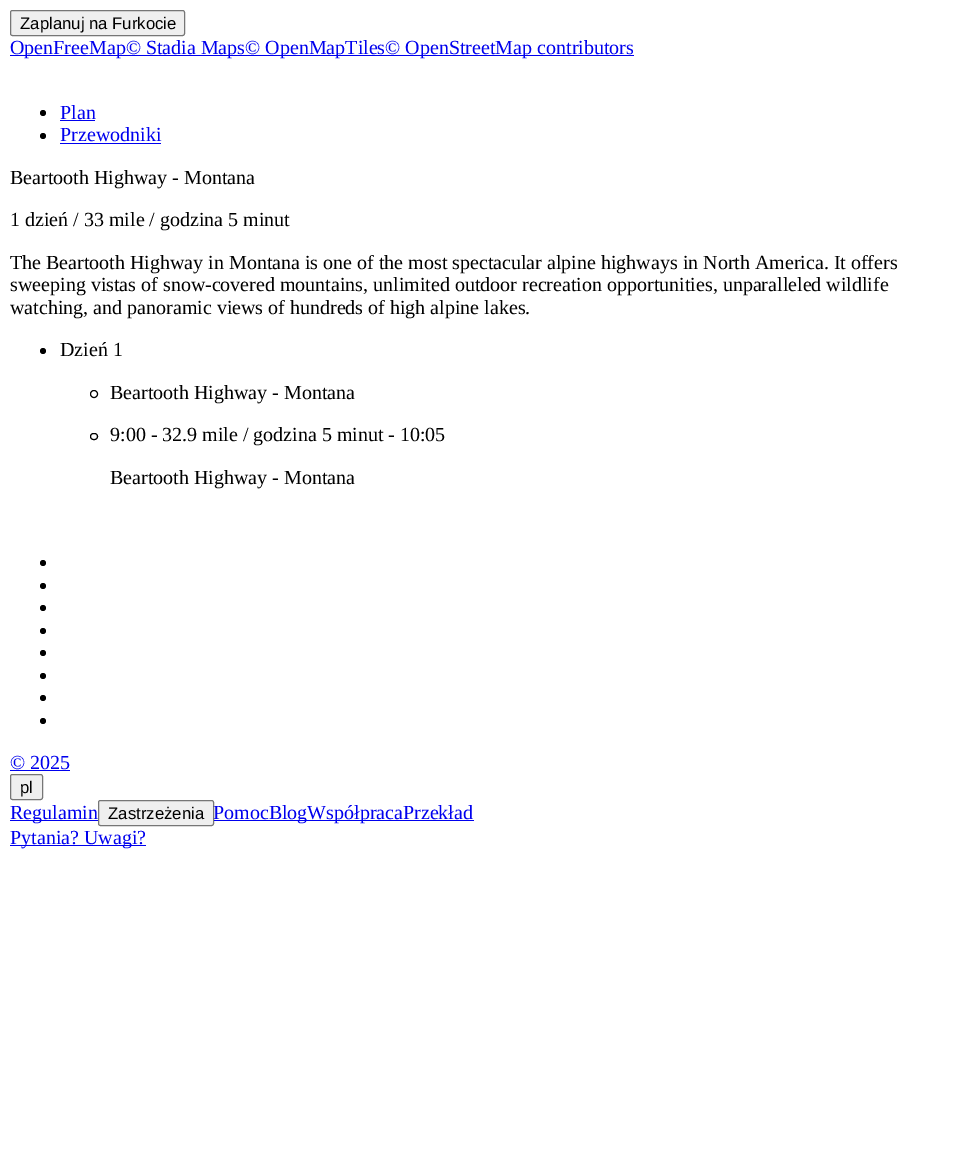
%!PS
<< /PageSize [968 1168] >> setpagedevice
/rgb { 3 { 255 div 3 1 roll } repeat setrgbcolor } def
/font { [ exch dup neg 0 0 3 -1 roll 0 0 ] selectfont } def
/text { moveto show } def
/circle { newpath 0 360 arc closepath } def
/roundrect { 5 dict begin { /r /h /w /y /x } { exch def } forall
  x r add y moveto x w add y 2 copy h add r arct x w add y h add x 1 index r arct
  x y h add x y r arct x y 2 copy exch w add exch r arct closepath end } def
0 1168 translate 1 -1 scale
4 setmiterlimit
255 255 255 rgb
0 0 968 1168 rectfill
239 239 239 rgb
10.5 10.5 174 25 2 roundrect gsave fill grestore
118 118 118 rgb
stroke
0 0 238 rgb
10 55 624 1 rectfill
0 0 0 rgb
43 113 3 circle fill
0 0 238 rgb
60 120 35 1 rectfill
0 0 0 rgb
43 136 3 circle fill
0 0 238 rgb
60 143 101 1 rectfill
0 0 0 rgb
43 351 3 circle fill
94 394 3.5 circle stroke
90.5 433.5 7 6 3 roundrect stroke
43 563 3 circle fill
43 586 3 circle fill
43 608 3 circle fill
43 631 3 circle fill
43 653 3 circle fill
43 676 3 circle fill
43 698 3 circle fill
43 721 3 circle fill
0 0 238 rgb
10 770 60 1 rectfill
239 239 239 rgb
10.5 774.5 32 25 2 roundrect gsave fill grestore
118 118 118 rgb
stroke
0 0 238 rgb
10 820 88 1 rectfill
239 239 239 rgb
98.5 800.5 115 25 2 roundrect gsave fill grestore
118 118 118 rgb
stroke
0 0 238 rgb
214 820 260 1 rectfill
10 845 136 1 rectfill
/LiberationSans-Regular 16.75 font
0 0 0 rgb
(Zaplanuj na Furkocie) 20 29 text
/LiberationSerif-Regular 20 font
0 0 238 rgb
(OpenFreeMap© Stadia Maps© OpenMapTiles© OpenStreetMap contributors) 10 54 text
(Plan) 60 119 text
(Przewodniki) 60 141 text
0 0 0 rgb
(Beartooth Highway - Montana) 10 184 text
(1 dzień / 33 mile / godzina 5 minut) 10 226 text
(The Beartooth Highway in Montana is one of the most spectacular alpine highways in North America. It offers) 10 269 text
(sweeping vistas of snow-covered mountains, unlimited outdoor recreation opportunities, unparalleled wildlife) 10 291 text
(watching, and panoramic views of hundreds of high alpine lakes.) 10 314 text
(Dzień 1) 60 356 text
(Beartooth Highway - Montana) 110 399 text
(9:00 - 32.9 mile / godzina 5 minut - 10:05) 110 441 text
(Beartooth Highway - Montana) 110 484 text
0 0 238 rgb
(© 2025) 10 769 text
/LiberationSans-Regular 16.75 font
0 0 0 rgb
(pl) 20 793 text
/LiberationSerif-Regular 20 font
0 0 238 rgb
(Regulamin) 10 819 text
/LiberationSans-Regular 16.75 font
0 0 0 rgb
(Zastrzeżenia) 108 819 text
/LiberationSerif-Regular 20 font
0 0 238 rgb
(PomocBlogWspółpracaPrzekład) 213 819 text
(Pytania? Uwagi?) 10 844 text
showpage
